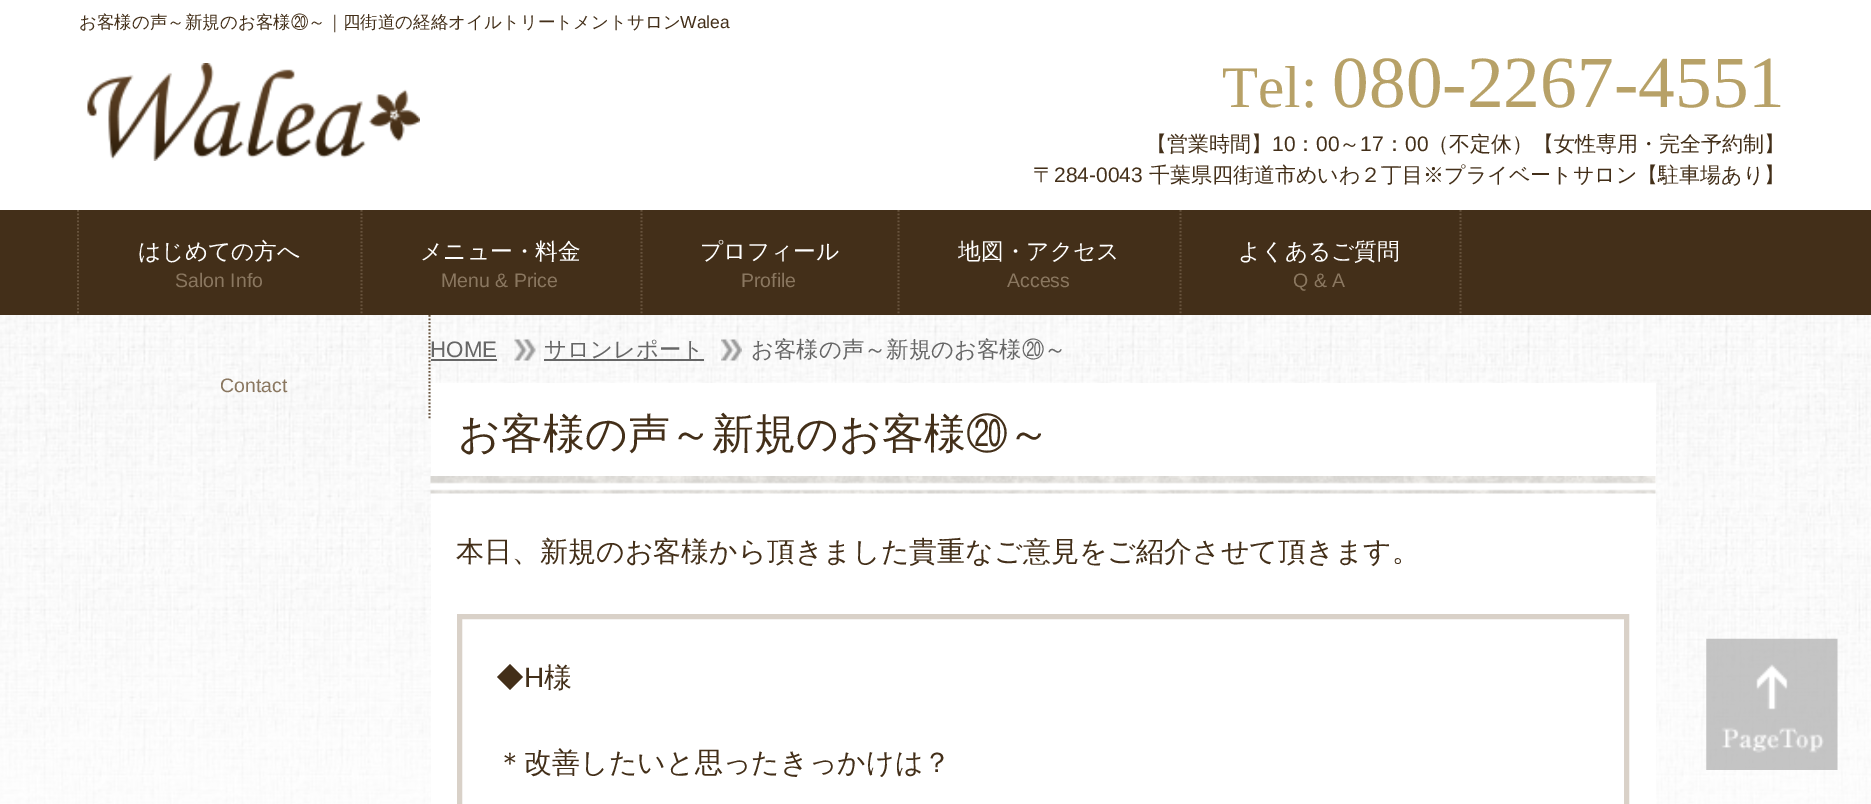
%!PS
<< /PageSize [1871 804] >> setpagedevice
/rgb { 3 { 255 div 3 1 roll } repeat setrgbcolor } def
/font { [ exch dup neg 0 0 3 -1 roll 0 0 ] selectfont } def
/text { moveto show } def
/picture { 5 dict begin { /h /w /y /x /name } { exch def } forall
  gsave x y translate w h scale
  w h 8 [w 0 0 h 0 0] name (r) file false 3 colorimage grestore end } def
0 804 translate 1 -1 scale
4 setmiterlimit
255 255 255 rgb
0 0 1871 804 rectfill
(img_01.rgb) 0 315 1871 489 picture
(img_02.rgb) 87 63 333 98 picture
67 47 25 rgb
0 210 1871 105 rectfill
103 83 61 rgb
1.8 setlinewidth
[1.75 1.75] 0 setdash
78 210 moveto 0 105 rlineto stroke
361.5 210 moveto 0 105 rlineto stroke
641.5 210 moveto 0 105 rlineto stroke
898.5 210 moveto 0 105 rlineto stroke
1180.5 210 moveto 0 105 rlineto stroke
1460.5 210 moveto 0 105 rlineto stroke
429.5 315 moveto 0 105 rlineto stroke
102 102 102 rgb
431 359 66 2 rectfill
(img_03.rgb) 514 339 22 22 picture
544 359 160 2 rectfill
(img_04.rgb) 721 339 21 22 picture
255 255 255 rgb
431 383 1225 421 rectfill
(img_05.rgb) 430 476 1226 18 picture
217 209 200 rgb
5 setlinewidth
[] 0 setdash
459.5 616.5 1167 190 rectstroke
(img_06.rgb) 1706 638 132 132 picture
/WenQuanYiZenHei-Medium 17.5 font
67 47 25 rgb
(お客様の声～新規のお客様⑳～｜四街道の経絡オイルトリートメントサロン) 79 28 text
/LiberationSans-Regular 17.5 font
(Walea) 680 28 text
/LiberationSerif-Regular 59 font
183 161 103 rgb
(Tel:) 1222 107 text
/LiberationSerif-Regular 73.5 font
(080-2267-4551) 1332 107 text
/WenQuanYiZenHei-Medium 21 font
67 47 25 rgb
(【営業時間】) 1146 151 text
/LiberationSans-Regular 21 font
(10) 1272 151 text
/WenQuanYiZenHei-Medium 21 font
(：) 1295 151 text
/LiberationSans-Regular 21 font
(00) 1316 151 text
/WenQuanYiZenHei-Medium 21 font
(～) 1339 151 text
/LiberationSans-Regular 21 font
(17) 1360 151 text
/WenQuanYiZenHei-Medium 21 font
(：) 1384 151 text
/LiberationSans-Regular 21 font
(00) 1405 151 text
/WenQuanYiZenHei-Medium 21 font
(（不定休）【女性専用・完全予約制】) 1428 151 text
(〒) 1033 182 text
/LiberationSans-Regular 21 font
(284-0043) 1054 182 text
/WenQuanYiZenHei-Medium 21 font
(千葉県四街道市めいわ２丁目※プライベートサロン【駐車場あり】) 1149 182 text
/WenQuanYiZenHei-Medium 22.75 font
255 255 255 rgb
(はじめての方へ) 138 259 text
/LiberationSans-Regular 19.5 font
138 119 96 rgb
(Salon Info) 175 287 text
/WenQuanYiZenHei-Medium 22.75 font
255 255 255 rgb
(メニュー・料金) 420 259 text
/LiberationSans-Regular 19.5 font
138 119 96 rgb
(Menu & Price) 441 287 text
/WenQuanYiZenHei-Medium 22.75 font
255 255 255 rgb
(プロフィール) 700 259 text
/LiberationSans-Regular 19.5 font
138 119 96 rgb
(Profile) 741 287 text
/WenQuanYiZenHei-Medium 22.75 font
255 255 255 rgb
(地図・アクセス) 958 259 text
/LiberationSans-Regular 19.5 font
138 119 96 rgb
(Access) 1007 287 text
/WenQuanYiZenHei-Medium 22.75 font
255 255 255 rgb
(よくあるご質問) 1238 259 text
/LiberationSans-Regular 19.5 font
138 119 96 rgb
(Q & A) 1293 287 text
(Contact) 220 392 text
/LiberationSans-Regular 22.4 font
102 102 102 rgb
(HOME) 430 357 text
/WenQuanYiZenHei-Medium 22.4 font
(サロンレポート) 544 357 text
(お客様の声～新規のお客様⑳～) 751 357 text
/WenQuanYiZenHei-Medium 42 font
67 47 25 rgb
(お客様の声～新規のお客様⑳～) 458 448 text
/WenQuanYiZenHei-Medium 28 font
(本日、新規のお客様から頂きました貴重なご意見をご紹介させて頂きます。) 456 561 text
(◆) 496 687 text
/LiberationSans-Regular 28 font
(H) 524 687 text
/WenQuanYiZenHei-Medium 28 font
(様) 544 687 text
(＊改善したいと思ったきっかけは？) 496 772 text
showpage
